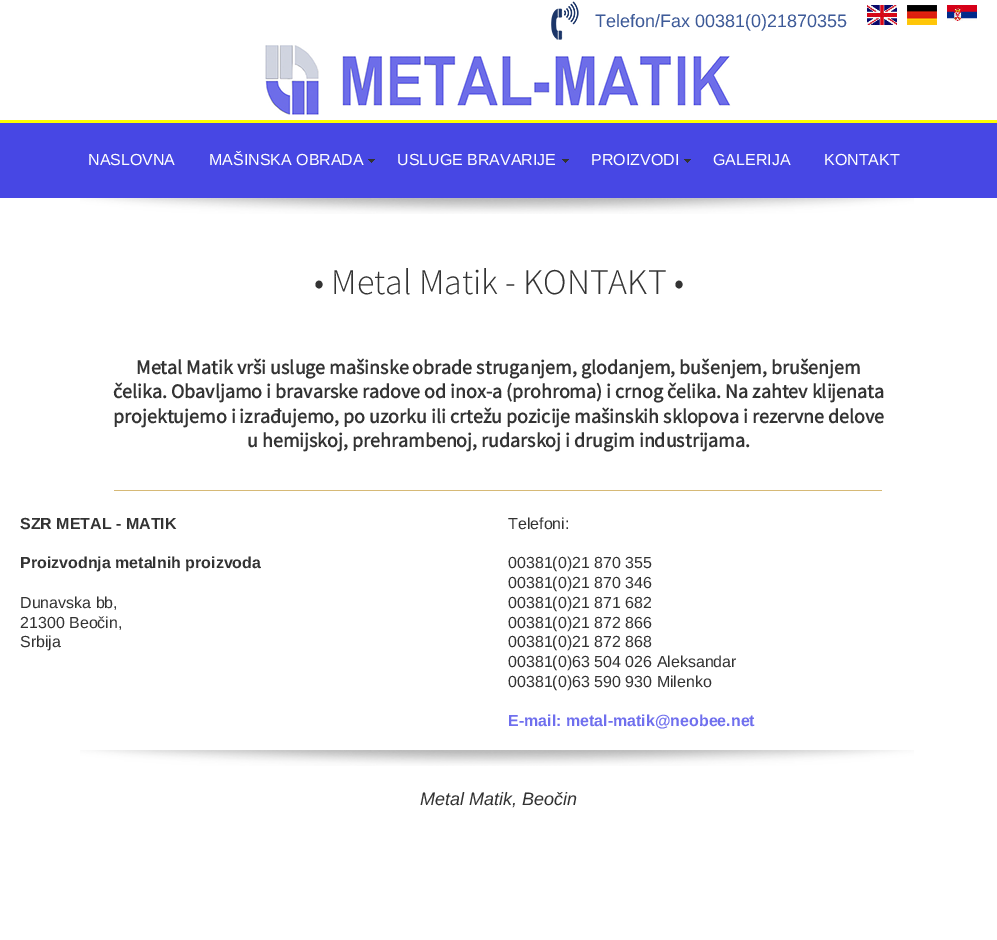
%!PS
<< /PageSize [997 940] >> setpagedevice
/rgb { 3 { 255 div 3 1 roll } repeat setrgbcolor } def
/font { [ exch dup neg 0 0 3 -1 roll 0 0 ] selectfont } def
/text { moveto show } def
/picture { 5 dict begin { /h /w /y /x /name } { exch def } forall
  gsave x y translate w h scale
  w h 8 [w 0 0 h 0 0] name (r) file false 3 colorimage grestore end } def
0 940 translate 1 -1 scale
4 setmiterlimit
255 255 255 rgb
0 0 997 940 rectfill
(img_01.rgb) 551 1 28 39 picture
(img_02.rgb) 867 5 30 20 picture
(img_03.rgb) 907 5 30 20 picture
(img_04.rgb) 947 5 30 16 picture
(img_05.rgb) 265 45 466 70 picture
71 71 228 rgb
0 123 997 75 rectfill
255 255 0 rgb
0 120 997 3 rectfill
(img_06.rgb) 368 159 7 4 picture
(img_06.rgb) 562 159 7 4 picture
(img_06.rgb) 684 159 7 4 picture
(img_07.rgb) 80 198 834 16 picture
214 185 118 rgb
114 490 768 1 rectfill
(img_07.rgb) 80 750 834 16 picture
/LiberationSans-Regular 18 font
61 90 152 rgb
(Telefon/Fax 00381\(0\)21870355) 595 27 text
/LiberationSans-Regular 16 font
255 255 255 rgb
(NASLOVNA) 88 165 text
(MAŠINSKA OBRADA) 209 165 text
(USLUGE BRAVARIJE) 397 165 text
(PROIZVODI) 591 165 text
(GALERIJA) 713 165 text
(KONTAKT) 824 165 text
/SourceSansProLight-Light 36 font
51 51 51 rgb
(• Metal Matik - KONTAKT •) 314 294 text
/SourceSansPro-Bold 20 font
(Metal Matik vrši usluge mašinske obrade struganjem, glodanjem, bušenjem, brušenjem) 136 374 text
(čelika. Obavljamo i bravarske radove od inox-a \(prohroma\) i crnog čelika. Na zahtev klijenata) 113 398 text
(projektujemo i izrađujemo, po uzorku ili crtežu pozicije mašinskih sklopova i rezervne delove) 113 423 text
(u hemijskoj, prehrambenoj, rudarskoj i drugim industrijama.) 247 447 text
/LiberationSans-Bold 16 font
(SZR METAL - MATIK) 20 529 text
(Proizvodnja metalnih proizvoda) 20 568 text
/LiberationSans-Regular 16 font
(Dunavska bb,) 20 608 text
(21300 Beočin,) 20 628 text
(Srbija) 20 647 text
(Telefoni:) 508 529 text
(00381\(0\)21 870 355) 508 568 text
(00381\(0\)21 870 346) 508 588 text
(00381\(0\)21 871 682) 508 608 text
(00381\(0\)21 872 866) 508 628 text
(00381\(0\)21 872 868) 508 647 text
(00381\(0\)63 504 026 Aleksandar) 508 667 text
(00381\(0\)63 590 930 Milenko) 508 687 text
/LiberationSans-Bold 16 font
111 111 238 rgb
(E-mail: metal-matik@neobee.net) 508 726 text
/LiberationSans-Italic 18 font
51 51 51 rgb
(Metal Matik, Beočin) 420 805 text
showpage
